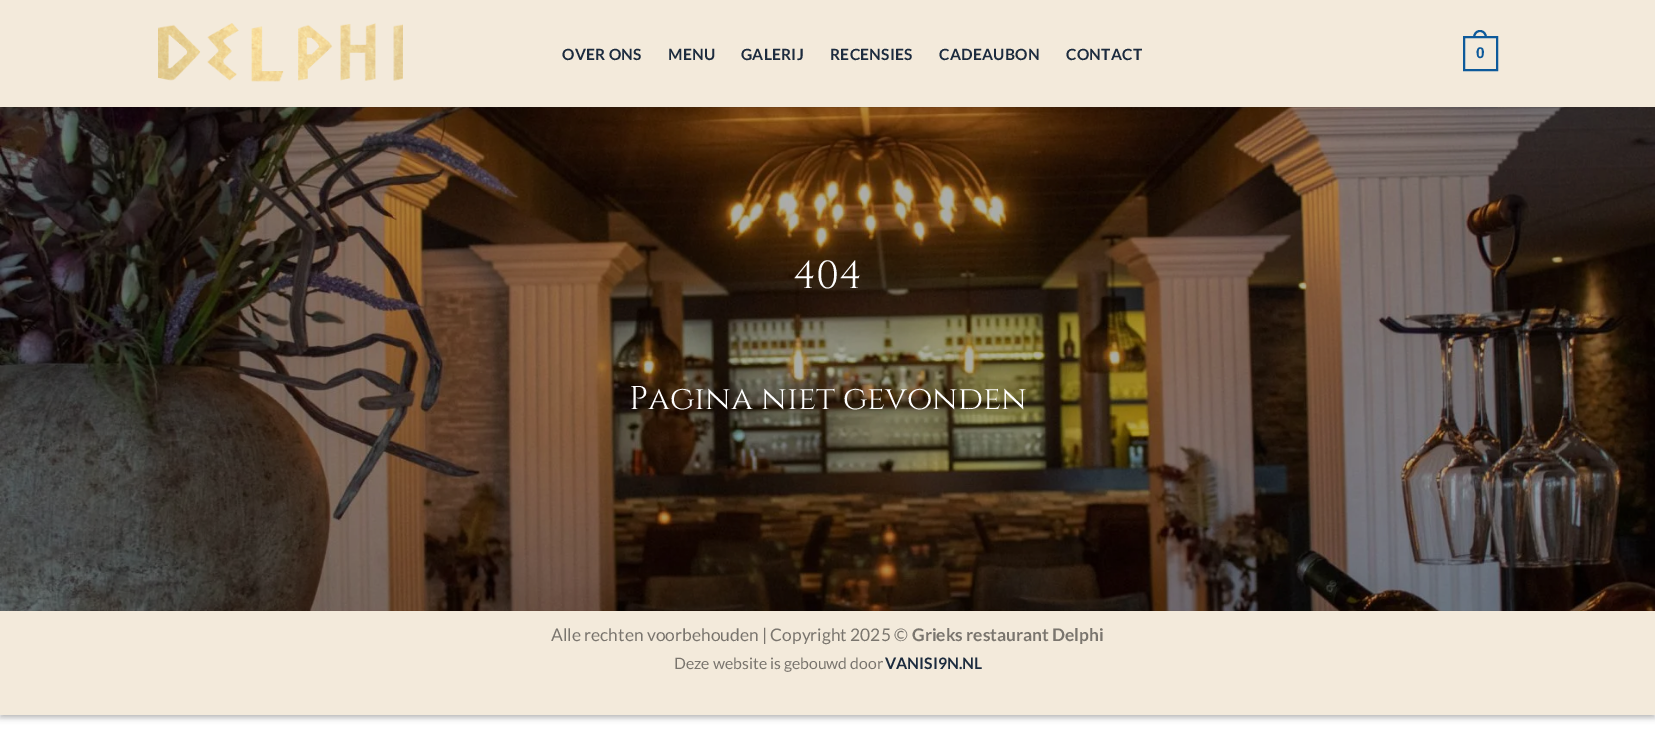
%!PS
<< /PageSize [1655 736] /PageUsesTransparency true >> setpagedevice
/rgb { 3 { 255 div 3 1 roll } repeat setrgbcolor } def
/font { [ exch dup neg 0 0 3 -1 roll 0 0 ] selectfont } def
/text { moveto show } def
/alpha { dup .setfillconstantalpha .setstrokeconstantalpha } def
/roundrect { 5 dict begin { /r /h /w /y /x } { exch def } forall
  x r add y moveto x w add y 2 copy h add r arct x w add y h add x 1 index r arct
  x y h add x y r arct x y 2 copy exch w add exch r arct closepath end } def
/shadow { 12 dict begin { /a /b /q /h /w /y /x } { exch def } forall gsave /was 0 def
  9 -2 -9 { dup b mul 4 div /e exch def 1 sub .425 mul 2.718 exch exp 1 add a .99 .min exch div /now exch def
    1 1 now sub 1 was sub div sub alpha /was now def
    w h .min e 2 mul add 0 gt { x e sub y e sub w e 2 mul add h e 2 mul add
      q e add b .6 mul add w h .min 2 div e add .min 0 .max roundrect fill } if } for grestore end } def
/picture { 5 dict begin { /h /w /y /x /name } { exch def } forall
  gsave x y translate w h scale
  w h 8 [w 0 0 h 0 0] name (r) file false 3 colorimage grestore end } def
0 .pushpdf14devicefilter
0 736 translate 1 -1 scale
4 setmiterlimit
255 255 255 rgb
0 0 1655 736 rectfill
0 0 0 rgb
0 3 1655 715 0 3 0.23 shadow
4 7 1647 707 0 3 0.16 shadow
243 234 219 rgb
0 0 1655 107 rectfill
(img_01.rgb) 158 23 245 59 picture
13 90 155 rgb
2 setlinewidth
1464 37 33 33 rectstroke
1480 30 moveto 4.5 0 7 4 7 8 rcurveto -14 0 rlineto 0 -4 2.5 -8 7 -8 rcurveto closepath 1480 32 moveto 3.5 0 5 3 5 6 rcurveto -10 0 rlineto 0 -3 1.5 -6 5 -6 rcurveto closepath eofill
(img_02.rgb) 0 107 1655 504 picture
0.1 alpha
28 43 62 rgb
158 107 1340 1 rectfill
1 alpha
243 234 219 rgb
0 611 1655 104 rectfill
/Lato-Bold 15.5 font
28 43 62 rgb
562 60 moveto 0.25 0 (OVER ONS) ashow
668 60 moveto 0.25 0 (MENU) ashow
741 60 moveto 0.25 0 (GALERIJ) ashow
830 60 moveto 0.25 0 (RECENSIES) ashow
939 60 moveto 0.25 0 (CADEAUBON) ashow
1066 60 moveto 0.25 0 (CONTACT) ashow
/LiberationSans-Bold 15.5 font
13 90 155 rgb
1476 58 moveto 0.25 0 (0) ashow
/Cinzel-Regular 39 font
255 255 255 rgb
(404) 793 288 text
/Cinzel-Regular 32.9 font
(Pagina niet gevonden) 629 409 text
/Lato-Regular 17.4 font
122 117 110 rgb
(Alle rechten voorbehouden | Copyright 2025 ©) 551 641 text
/Lato-Bold 17.4 font
(Grieks restaurant Delphi) 912 641 text
/Lato-Regular 15.75 font
(Deze website is gebouwd door) 674 669 text
/Lato-Bold 15.75 font
28 43 62 rgb
(VANISI9N.NL) 885 669 text
.poppdf14devicefilter showpage
